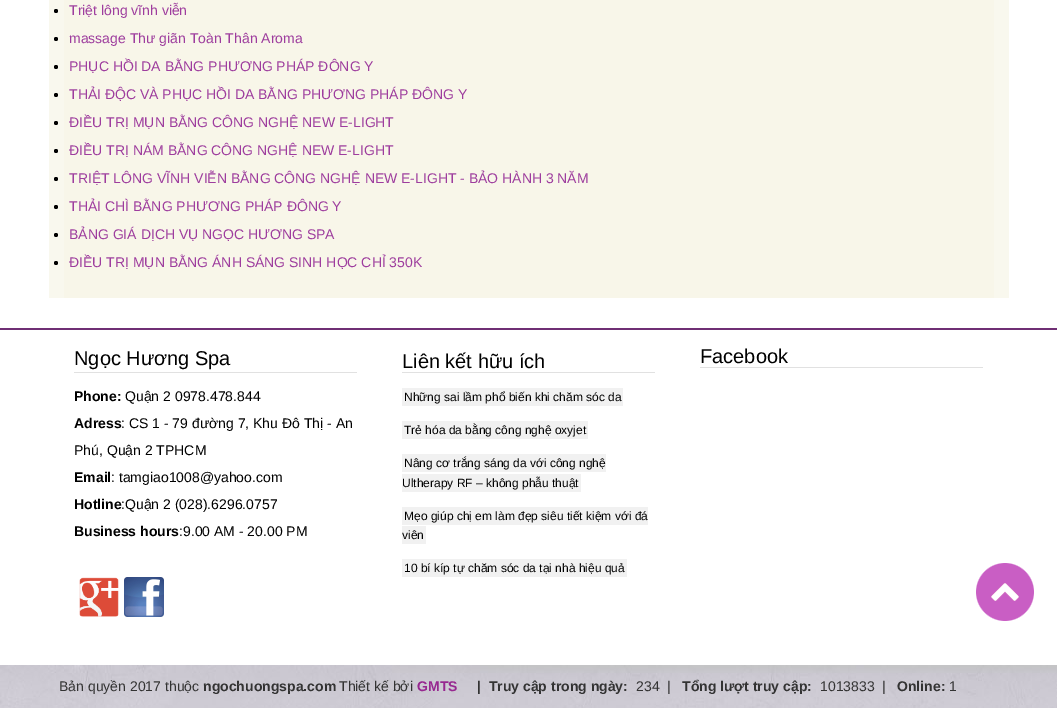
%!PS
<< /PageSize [1057 708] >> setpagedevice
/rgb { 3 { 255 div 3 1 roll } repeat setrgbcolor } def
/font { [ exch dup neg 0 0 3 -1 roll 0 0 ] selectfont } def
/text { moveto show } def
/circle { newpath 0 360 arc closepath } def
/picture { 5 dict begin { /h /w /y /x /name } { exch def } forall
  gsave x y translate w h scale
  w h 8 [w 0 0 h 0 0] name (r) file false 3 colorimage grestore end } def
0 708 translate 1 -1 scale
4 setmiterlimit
255 255 255 rgb
0 0 1057 708 rectfill
249 248 238 rgb
49 0 960 298 rectfill
248 246 233 rgb
64 0 930 298 rectfill
0 0 0 rgb
56 11 2 circle fill
56 39 2 circle fill
56 67 2 circle fill
56 95 2 circle fill
56 123 2 circle fill
56 151 2 circle fill
56 179 2 circle fill
56 207 2 circle fill
56 235 2 circle fill
56 263 2 circle fill
111 47 116 rgb
0 328 1057 2 rectfill
225 225 225 rgb
74 372 283 1 rectfill
(img_01.rgb) 79 577 40 40 picture
(img_02.rgb) 124 577 40 40 picture
402 372 253 1 rectfill
241 241 241 rgb
402 388 221 18 rectfill
402 421 186 18 rectfill
402 454 204 18 rectfill
402 474 179 18 rectfill
402 507 246 18 rectfill
402 526 24 18 rectfill
402 559 225 18 rectfill
225 225 225 rgb
700 367 283 1 rectfill
(img_03.rgb) 0 665 1057 43 picture
(img_04.rgb) 976 563 58 58 picture
/LiberationSans-Regular 14 font
158 61 158 rgb
(Triệt lông vĩnh viễn) 69 15 text
(massage Thư giãn Toàn Thân Aroma) 69 43 text
(PHỤC HỒI DA BẰNG PHƯƠNG PHÁP ĐÔNG Y) 69 71 text
(THẢI ĐỘC VÀ PHỤC HỒI DA BẰNG PHƯƠNG PHÁP ĐÔNG Y) 69 99 text
(ĐIỀU TRỊ MỤN BẰNG CÔNG NGHỆ NEW E-LIGHT) 69 127 text
(ĐIỀU TRỊ NÁM BẰNG CÔNG NGHỆ NEW E-LIGHT) 69 155 text
(TRIỆT LÔNG VĨNH VIỄN BẰNG CÔNG NGHỆ NEW E-LIGHT - BẢO HÀNH 3 NĂM) 69 183 text
(THẢI CHÌ BẰNG PHƯƠNG PHÁP ĐÔNG Y) 69 211 text
(BẢNG GIÁ DỊCH VỤ NGỌC HƯƠNG SPA) 69 239 text
(ĐIỀU TRỊ MỤN BẰNG ÁNH SÁNG SINH HỌC CHỈ 350K) 69 267 text
/LiberationSans-Regular 20 font
0 0 0 rgb
(Ngọc Hương Spa) 74 365 text
/LiberationSans-Bold 14 font
(Phone:) 74 401 text
/LiberationSans-Regular 14 font
(Quận 2 0978.478.844) 125 401 text
/LiberationSans-Bold 14 font
(Adress) 74 428 text
/LiberationSans-Regular 14 font
(: CS 1 - 79 đường 7, Khu Đô Thị - An) 121 428 text
(Phú, Quận 2 TPHCM) 74 455 text
/LiberationSans-Bold 14 font
(Email) 74 482 text
/LiberationSans-Regular 14 font
(: tamgiao1008@yahoo.com) 111 482 text
/LiberationSans-Bold 14 font
(Hotline) 74 509 text
/LiberationSans-Regular 14 font
(:Quận 2 \(028\).6296.0757) 121 509 text
/LiberationSans-Bold 14 font
(Business hours) 74 536 text
/LiberationSans-Regular 14 font
(:9.00 AM - 20.00 PM) 179 536 text
/LiberationSans-Regular 20 font
(Liên kết hữu ích) 402 368 text
/LiberationSans-Regular 12 font
(Những sai lầm phổ biến khi chăm sóc da) 404 401 text
(Trẻ hóa da bằng công nghệ oxyjet) 404 434 text
(Nâng cơ trắng sáng da với công nghệ) 404 467 text
(Ultherapy RF – không phẫu thuật) 402 487 text
(Mẹo giúp chị em làm đẹp siêu tiết kiệm với đá) 404 520 text
(viên) 402 539 text
(10 bí kíp tự chăm sóc da tại nhà hiệu quả) 404 572 text
/LiberationSans-Regular 20 font
(Facebook) 700 363 text
/LiberationSans-Regular 14 font
51 51 51 rgb
(Bản quyền 2017 thuộc) 59 691 text
/LiberationSans-Bold 14 font
(ngochuongspa.com) 203 691 text
/LiberationSans-Regular 14 font
(Thiết kế bởi) 339 691 text
/LiberationSans-Bold 14 font
151 39 144 rgb
(GMTS) 417 691 text
51 51 51 rgb
(|  Truy cập trong ngày:) 477 691 text
/LiberationSans-Regular 14 font
(234) 636 691 text
(|) 667 691 text
/LiberationSans-Bold 14 font
(Tổng lượt truy cập:) 682 691 text
/LiberationSans-Regular 14 font
(1013833) 820 691 text
(|) 882 691 text
/LiberationSans-Bold 14 font
(Online:) 897 691 text
/LiberationSans-Regular 14 font
(1) 949 691 text
showpage
